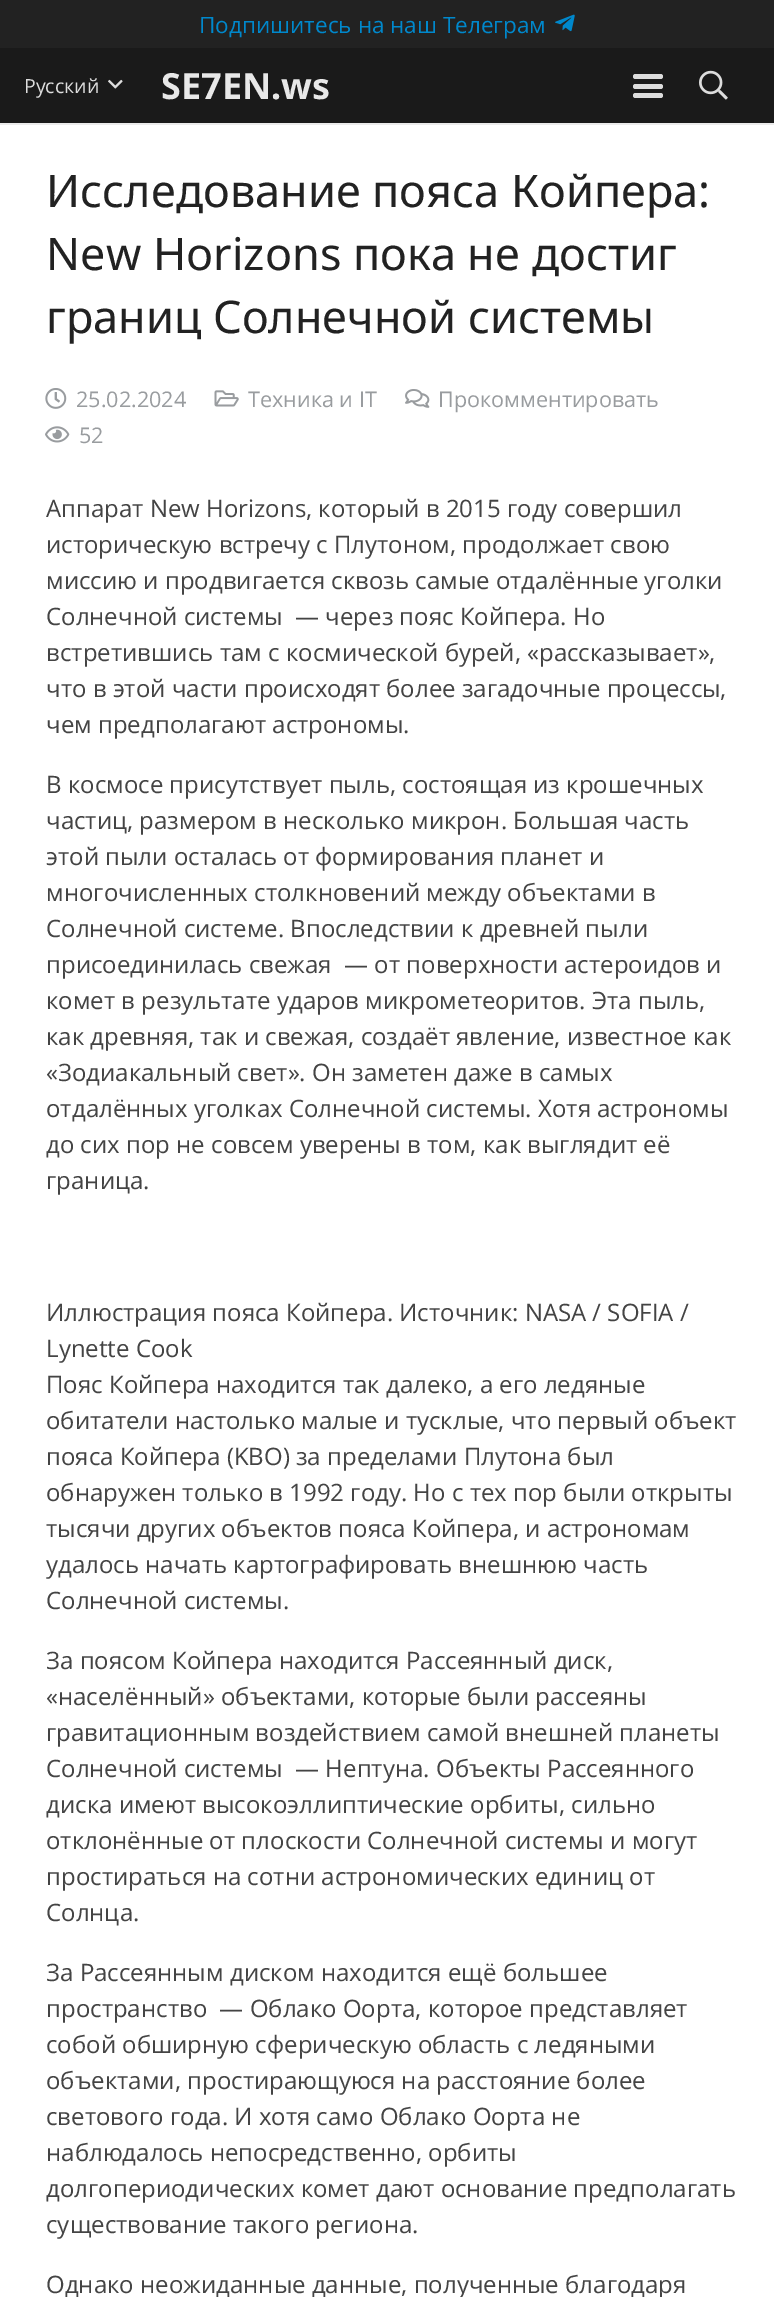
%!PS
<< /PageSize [774 2297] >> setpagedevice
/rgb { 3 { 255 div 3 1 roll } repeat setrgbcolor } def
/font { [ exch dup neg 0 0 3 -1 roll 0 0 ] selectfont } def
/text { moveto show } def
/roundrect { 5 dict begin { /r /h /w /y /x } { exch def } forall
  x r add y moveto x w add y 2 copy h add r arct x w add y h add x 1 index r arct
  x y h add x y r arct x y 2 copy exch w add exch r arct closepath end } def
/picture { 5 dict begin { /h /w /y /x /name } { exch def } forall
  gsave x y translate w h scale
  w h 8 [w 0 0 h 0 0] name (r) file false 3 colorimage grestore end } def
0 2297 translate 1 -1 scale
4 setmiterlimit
255 255 255 rgb
0 0 774 2297 rectfill
34 34 34 rgb
0 0 774 48 rectfill
(img_01.rgb) 555 14 20 18 picture
235 235 235 rgb
0 123 774 2 rectfill
26 26 26 rgb
0 48 774 75 rectfill
(img_02.rgb) 108 79 15 10 picture
221 221 221 rgb
633 84 30 5 2.5 roundrect fill
633 74 30 5 2.5 roundrect fill
633 93 30 5 2.5 roundrect fill
(img_03.rgb) 699 70 29 30 picture
(img_04.rgb) 45 388 22 21 picture
(img_05.rgb) 214 390 25 17 picture
(img_06.rgb) 405 389 25 19 picture
(img_07.rgb) 45 426 25 17 picture
/OpenSans-Regular 22.5 font
0 136 204 rgb
(Подпишитесь на наш Телеграм) 199 33 text
/OpenSans-Regular 19.5 font
221 221 221 rgb
(Русский) 24 93 text
/NotoSans-Bold 36 font
232 232 232 rgb
(SE7EN.ws) 161 99 text
/NotoSans-Regular 45 font
34 34 34 rgb
(Исследование пояса Койпера:) 46 207 text
(New Horizons пока не достиг) 46 270 text
(границ Солнечной системы) 46 333 text
/OpenSans-Regular 21.6 font
153 156 159 rgb
(25.02.2024) 76 407 text
(Техника и IT) 248 407 text
(Прокомментировать) 438 407 text
(52) 79 443 text
/OpenSans-Regular 24 font
68 68 68 rgb
(Аппарат New Horizons, который в 2015 году совершил) 46 517 text
(историческую встречу с Плутоном, продолжает свою) 46 553 text
(миссию и продвигается сквозь самые отдалённые уголки) 46 589 text
(Солнечной системы  — через пояс Койпера. Но) 46 625 text
(встретившись там с космической бурей, «рассказывает»,) 46 661 text
(что в этой части происходят более загадочные процессы,) 46 697 text
(чем предполагают астрономы.) 46 733 text
(В космосе присутствует пыль, состоящая из крошечных) 46 793 text
(частиц, размером в несколько микрон. Большая часть) 46 829 text
(этой пыли осталась от формирования планет и) 46 865 text
(многочисленных столкновений между объектами в) 46 901 text
(Солнечной системе. Впоследствии к древней пыли) 46 937 text
(присоединилась свежая  — от поверхности астероидов и) 46 973 text
(комет в результате ударов микрометеоритов. Эта пыль,) 46 1009 text
(как древняя, так и свежая, создаёт явление, известное как) 46 1045 text
(«Зодиакальный свет». Он заметен даже в самых) 46 1081 text
(отдалённых уголках Солнечной системы. Хотя астрономы) 46 1117 text
(до сих пор не совсем уверены в том, как выглядит её) 46 1153 text
(граница.) 46 1189 text
(Иллюстрация пояса Койпера. Источник: NASA / SOFIA /) 46 1321 text
(Lynette Cook) 46 1357 text
(Пояс Койпера находится так далеко, а его ледяные) 46 1393 text
(обитатели настолько малые и тусклые, что первый объект) 46 1429 text
(пояса Койпера \(KBO\) за пределами Плутона был) 46 1465 text
(обнаружен только в 1992 году. Но с тех пор были открыты) 46 1501 text
(тысячи других объектов пояса Койпера, и астрономам) 46 1537 text
(удалось начать картографировать внешнюю часть) 46 1573 text
(Солнечной системы.) 46 1609 text
(За поясом Койпера находится Рассеянный диск,) 46 1669 text
(«населённый» объектами, которые были рассеяны) 46 1705 text
(гравитационным воздействием самой внешней планеты) 46 1741 text
(Солнечной системы  — Нептуна. Объекты Рассеянного) 46 1777 text
(диска имеют высокоэллиптические орбиты, сильно) 46 1813 text
(отклонённые от плоскости Солнечной системы и могут) 46 1849 text
(простираться на сотни астрономических единиц от) 46 1885 text
(Солнца.) 46 1921 text
(За Рассеянным диском находится ещё большее) 46 1981 text
(пространство  — Облако Оорта, которое представляет) 46 2017 text
(собой обширную сферическую область с ледяными) 46 2053 text
(объектами, простирающуюся на расстояние более) 46 2089 text
(светового года. И хотя само Облако Оорта не) 46 2125 text
(наблюдалось непосредственно, орбиты) 46 2161 text
(долгопериодических комет дают основание предполагать) 46 2197 text
(существование такого региона.) 46 2233 text
(Однако неожиданные данные, полученные благодаря) 46 2293 text
showpage
